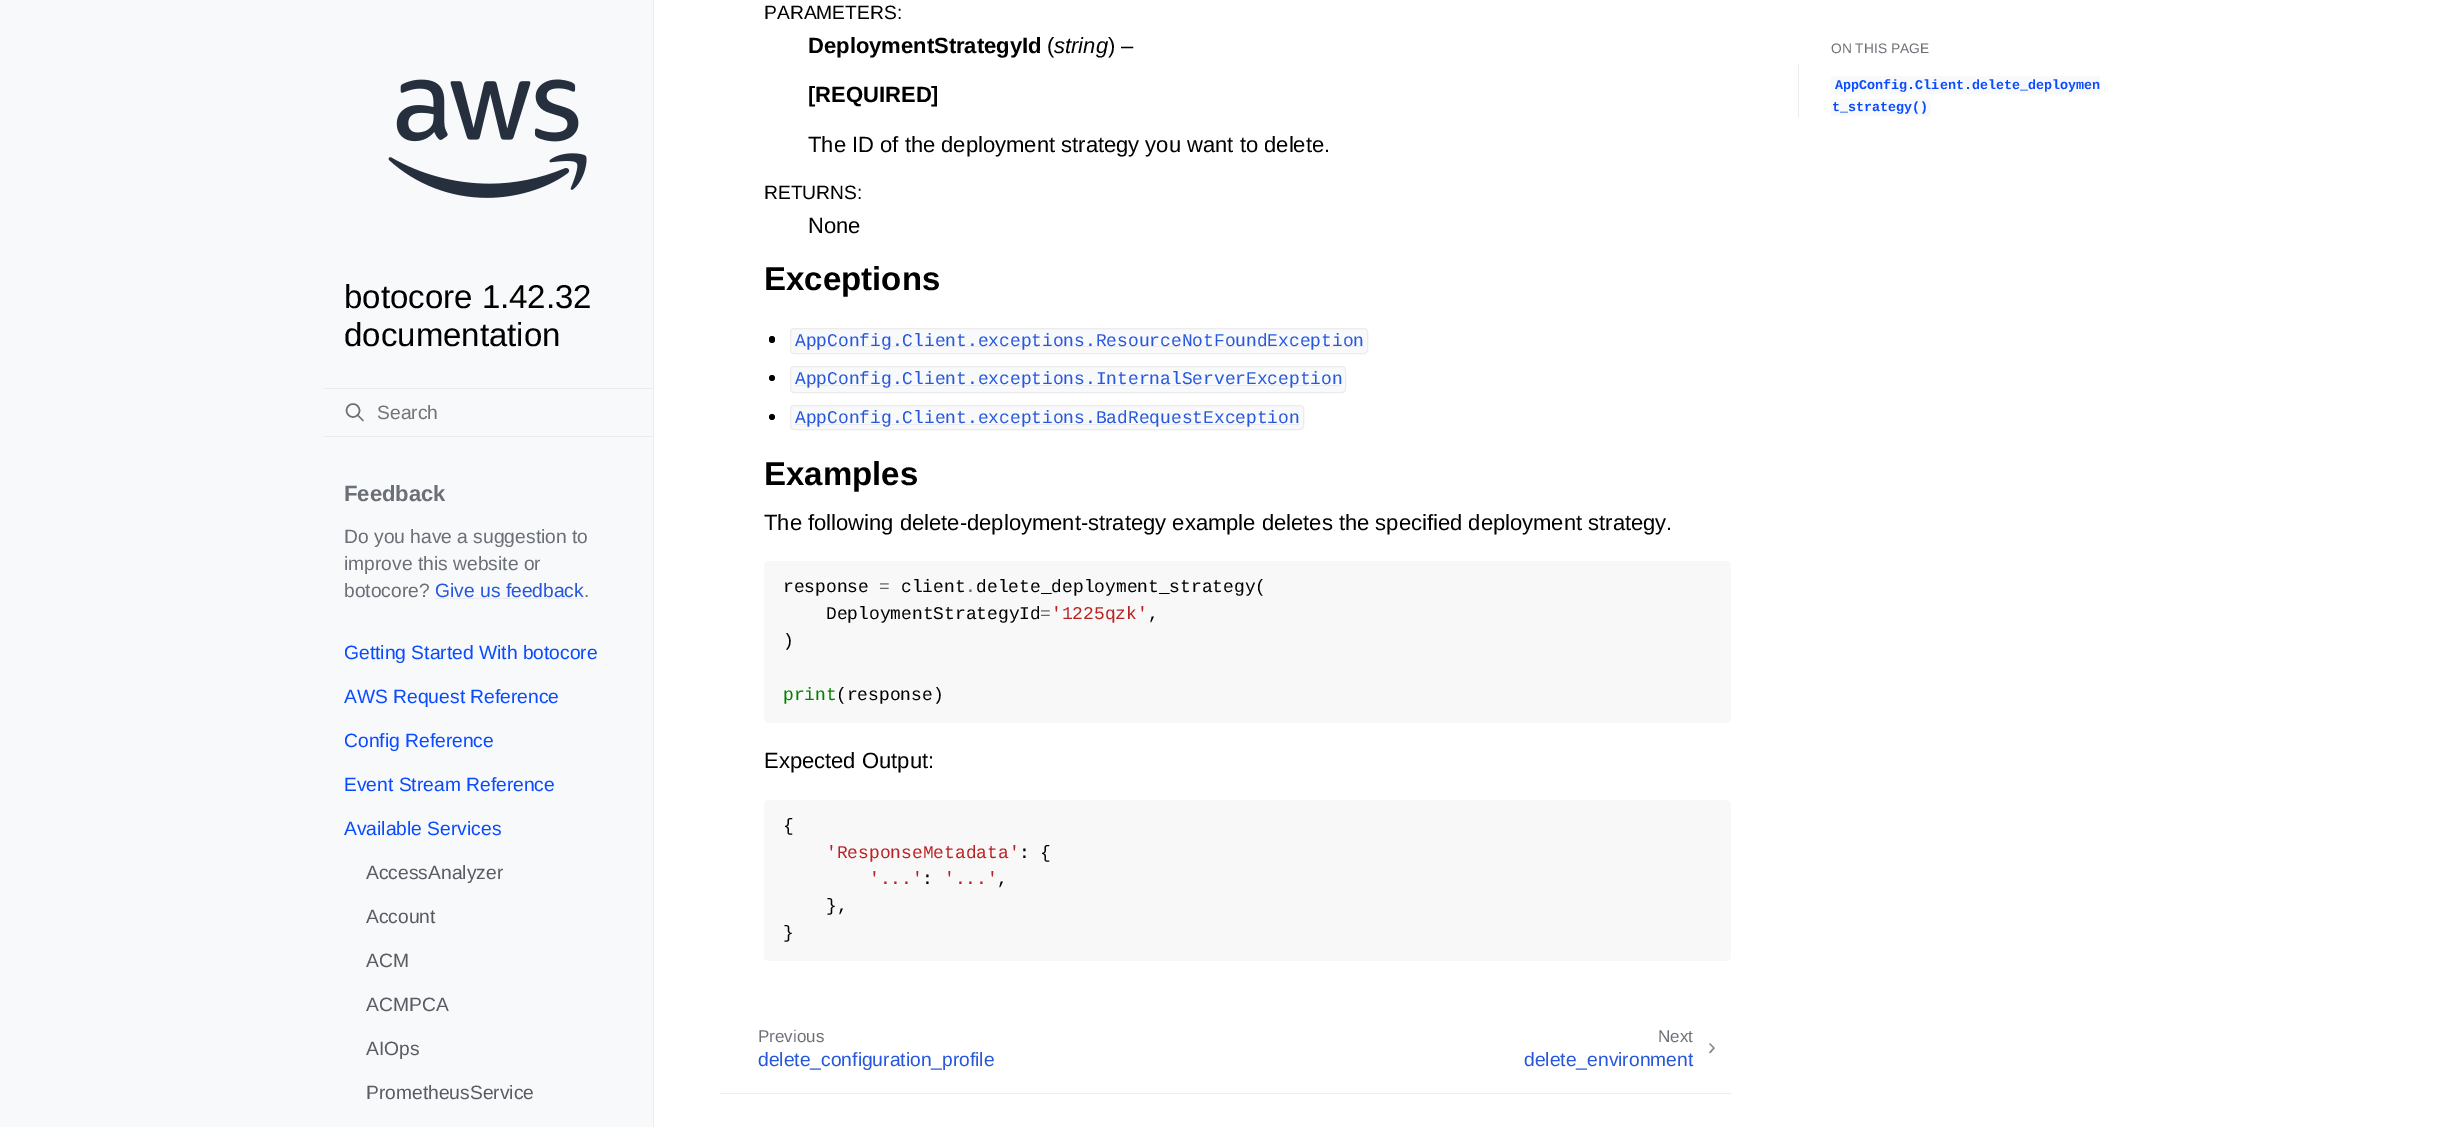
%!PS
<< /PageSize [2451 1127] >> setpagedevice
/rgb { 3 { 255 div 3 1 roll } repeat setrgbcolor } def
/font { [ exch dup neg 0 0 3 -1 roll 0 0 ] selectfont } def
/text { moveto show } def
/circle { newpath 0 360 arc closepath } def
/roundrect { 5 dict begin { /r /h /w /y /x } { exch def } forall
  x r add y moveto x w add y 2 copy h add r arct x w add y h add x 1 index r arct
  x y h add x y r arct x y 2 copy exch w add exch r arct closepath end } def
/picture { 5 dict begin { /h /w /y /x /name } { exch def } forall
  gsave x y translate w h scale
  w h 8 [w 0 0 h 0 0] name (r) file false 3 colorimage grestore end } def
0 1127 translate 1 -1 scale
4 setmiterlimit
255 255 255 rgb
0 0 2451 1127 rectfill
248 249 251 rgb
0 0 653 1127 rectfill
238 235 238 rgb
653 0 1 1127 rectfill
(img_01.rgb) 388 79 199 119 picture
107 111 118 rgb
1.4 setlinewidth
353 410.5 6.5 circle stroke
1 setlinecap
1 setlinejoin
363 420.5 moveto -5.5 -5.5 rlineto stroke
238 235 238 rgb
323 388 330 1 rectfill
323 436 330 1 rectfill
435 598 149 1 rectfill
0 0 0 rgb
769 336 6 7 3 roundrect fill
248 249 251 rgb
790.5 328.5 577 25 3.5 roundrect gsave fill grestore
238 235 238 rgb
1 setlinewidth
0 setlinecap
0 setlinejoin
stroke
795 346 569 1 rectfill
0 0 0 rgb
772 378 3 circle fill
248 249 251 rgb
790.5 366.5 555 26 3.5 roundrect gsave fill grestore
238 235 238 rgb
stroke
795 385 546 1 rectfill
0 0 0 rgb
772 417 3 circle fill
248 249 251 rgb
790.5 405.5 513 24 3.5 roundrect gsave fill grestore
238 235 238 rgb
stroke
795 424 504 1 rectfill
248 248 248 rgb
764 561 967 162 5 roundrect fill
764 800 967 161 5 roundrect fill
135 135 135 rgb
1.4 setlinewidth
1 setlinecap
1 setlinejoin
1710 1052.5 moveto 4 -4.5 rlineto -4 -4 rlineto stroke
238 235 238 rgb
720 1093 1011 1 rectfill
1798 64 1 54 rectfill
248 249 251 rgb
1833.5 76 moveto 266.5 0 rlineto 0 18 rlineto -266.5 0 rlineto -1.5 0 -2.5 -1 -2.5 -2.5 rcurveto 0 -13 rlineto 0 -1.5 1 -2.5 2.5 -2.5 rcurveto closepath fill
1831 99 moveto 97.5 0 rlineto 1.5 0 2.5 1 2.5 2.5 rcurveto 0 12 rlineto 0 1.5 -1 2.5 -2.5 2.5 rcurveto -97.5 0 rlineto closepath fill
/LiberationSans-Regular 33 font
0 0 0 rgb
(botocore 1.42.32) 344 308 text
(documentation) 344 346 text
/LiberationSans-Regular 19.25 font
117 117 117 rgb
(Search) 377 419 text
/LiberationSans-Bold 22 font
107 111 118 rgb
(Feedback) 344 501 text
/LiberationSans-Regular 19.25 font
(Do you have a suggestion to) 344 543 text
(improve this website or) 344 570 text
(botocore?) 344 597 text
39 87 221 rgb
(Give us feedback) 435 597 text
107 111 118 rgb
(.) 584 597 text
10 75 255 rgb
(Getting Started With botocore) 344 659 text
(AWS Request Reference) 344 703 text
(Config Reference) 344 747 text
(Event Stream Reference) 344 791 text
(Available Services) 344 835 text
90 92 99 rgb
(AccessAnalyzer) 366 879 text
(Account) 366 923 text
(ACM) 366 967 text
(ACMPCA) 366 1011 text
(AIOps) 366 1055 text
(PrometheusService) 366 1099 text
0 0 0 rgb
(PARAMETERS:) 764 19 text
/LiberationSans-Bold 22 font
(DeploymentStrategyId) 808 53 text
/LiberationSans-Regular 22 font
(\() 1047 53 text
/LiberationSans-Italic 22 font
(string) 1054 53 text
/LiberationSans-Regular 22 font
(\) –) 1108 53 text
/LiberationSans-Bold 22 font
([REQUIRED]) 808 102 text
/LiberationSans-Regular 22 font
(The ID of the deployment strategy you want to delete.) 808 152 text
/LiberationSans-Regular 19.25 font
(RETURNS:) 764 199 text
/LiberationSans-Regular 22 font
(None) 808 233 text
/LiberationSans-Bold 33 font
(Exceptions) 764 290 text
/LiberationMono-Regular 17.9 font
39 87 221 rgb
(AppConfig.Client.exceptions.ResourceNotFoundException) 795 346 text
(AppConfig.Client.exceptions.InternalServerException) 795 384 text
(AppConfig.Client.exceptions.BadRequestException) 795 423 text
/LiberationSans-Bold 33 font
0 0 0 rgb
(Examples) 764 485 text
/LiberationSans-Regular 22 font
(The following delete-deployment-strategy example deletes the specified deployment strategy.) 764 530 text
/LiberationMono-Regular 17.9 font
(response) 783 592 text
102 102 102 rgb
(=) 879 592 text
0 0 0 rgb
(client delete_deployment_strategy\() 901 592 text
102 102 102 rgb
(.) 965 592 text
0 0 0 rgb
(DeploymentStrategyId) 826 619 text
102 102 102 rgb
(=) 1040 619 text
186 33 33 rgb
('1225qzk') 1051 619 text
0 0 0 rgb
(,) 1148 619 text
(\)) 783 646 text
0 128 0 rgb
(print) 783 700 text
0 0 0 rgb
(\(response\)) 836 700 text
/LiberationSans-Regular 22 font
(Expected Output:) 764 768 text
/LiberationMono-Regular 17.9 font
({) 783 831 text
186 33 33 rgb
('ResponseMetadata') 826 858 text
0 0 0 rgb
(: {) 1019 858 text
186 33 33 rgb
('...') 869 884 text
0 0 0 rgb
(:) 922 884 text
186 33 33 rgb
('...') 944 884 text
0 0 0 rgb
(,) 997 884 text
(},) 826 911 text
(}) 783 938 text
/LiberationSans-Regular 17 font
107 111 118 rgb
(Previous) 758 1042 text
/LiberationSans-Regular 19.25 font
39 87 221 rgb
(delete_configuration_profile) 758 1066 text
/LiberationSans-Regular 17 font
107 111 118 rgb
(Next) 1658 1042 text
/LiberationSans-Regular 19.25 font
39 87 221 rgb
(delete_environment) 1524 1066 text
/LiberationSans-Regular 13.75 font
107 111 118 rgb
(ON THIS PAGE) 1831 53 text
/LiberationMono-Bold 13.4 font
10 75 255 rgb
(AppConfig.Client.delete_deploymen) 1835 89 text
(t_strategy\(\)) 1832 111 text
showpage
